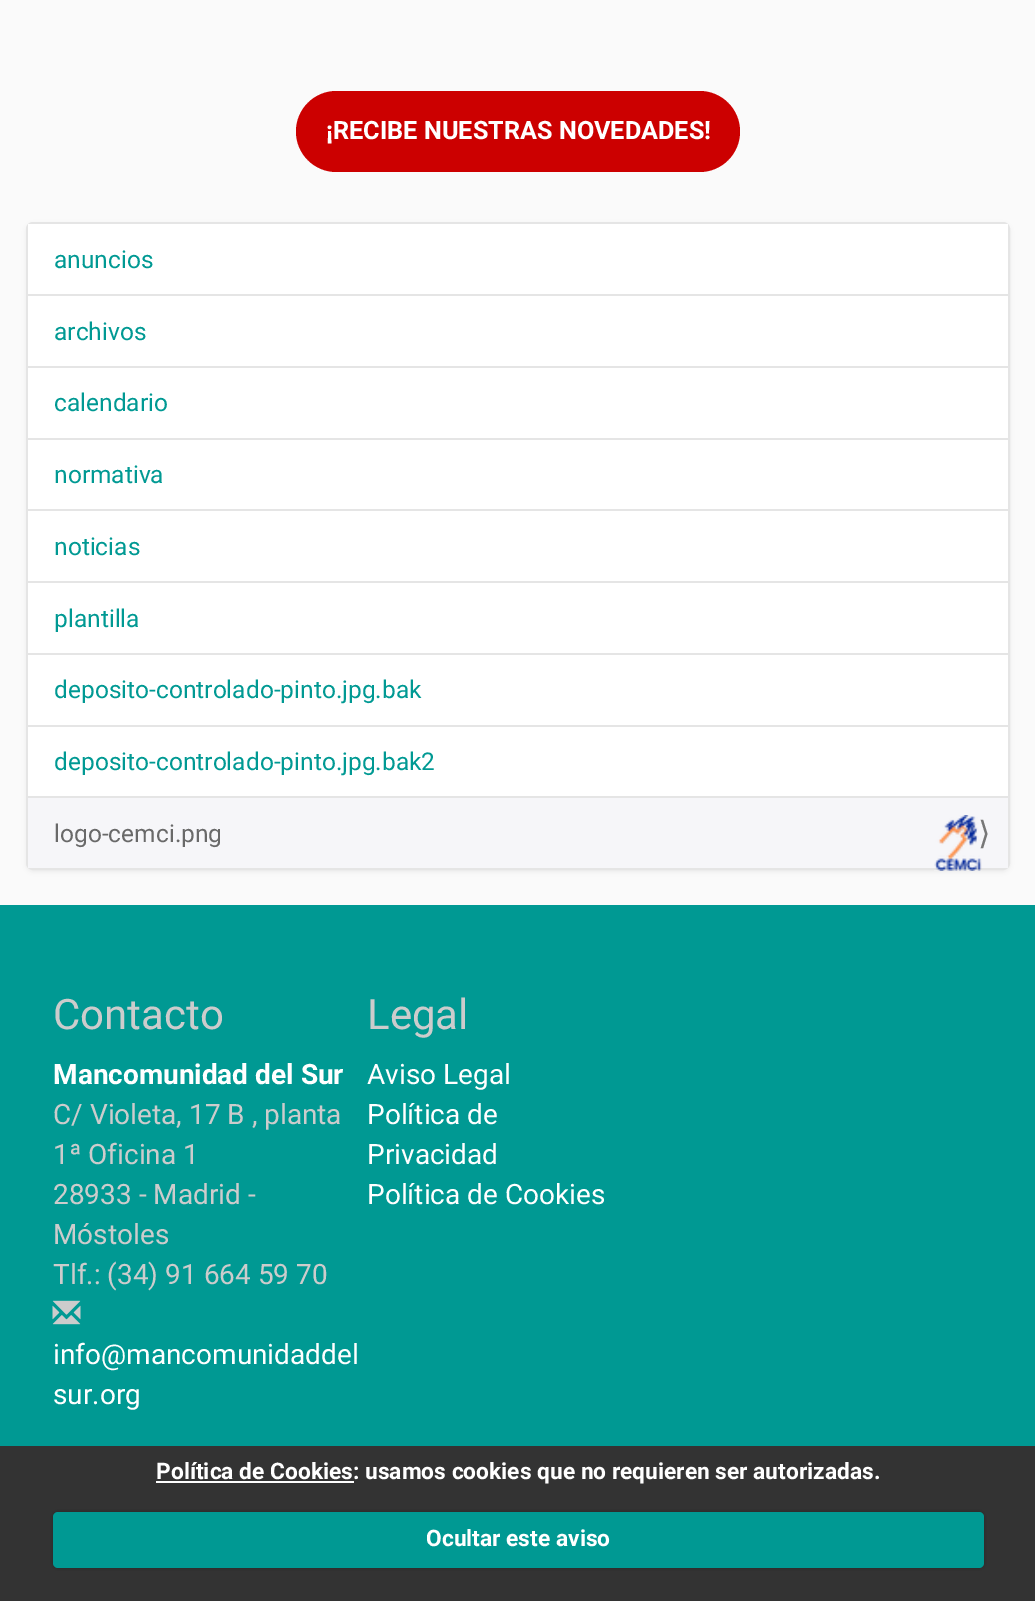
%!PS
<< /PageSize [1035 1601] /PageUsesTransparency true >> setpagedevice
/rgb { 3 { 255 div 3 1 roll } repeat setrgbcolor } def
/font { [ exch dup neg 0 0 3 -1 roll 0 0 ] selectfont } def
/text { moveto show } def
/alpha { dup .setfillconstantalpha .setstrokeconstantalpha } def
/roundrect { 5 dict begin { /r /h /w /y /x } { exch def } forall
  x r add y moveto x w add y 2 copy h add r arct x w add y h add x 1 index r arct
  x y h add x y r arct x y 2 copy exch w add exch r arct closepath end } def
/shadow { 12 dict begin { /a /b /q /h /w /y /x } { exch def } forall gsave /was 0 def
  9 -2 -9 { dup b mul 4 div /e exch def 1 sub .425 mul 2.718 exch exp 1 add a .99 .min exch div /now exch def
    1 1 now sub 1 was sub div sub alpha /was now def
    w h .min e 2 mul add 0 gt { x e sub y e sub w e 2 mul add h e 2 mul add
      q e add b .6 mul add w h .min 2 div e add .min 0 .max roundrect fill } if } for grestore end } def
/picture { 5 dict begin { /h /w /y /x /name } { exch def } forall
  gsave x y translate w h scale
  w h 8 [w 0 0 h 0 0] name (r) file false 3 colorimage grestore end } def
0 .pushpdf14devicefilter
0 1601 translate 1 -1 scale
4 setmiterlimit
250 250 250 rgb
0 0 1035 1601 rectfill
204 0 0 rgb
296 91 444 81 40.5 roundrect fill
0 0 0 rgb
26 224 984 648 7 2.5 0.05 shadow
229 229 229 rgb
2 setlinewidth
27 223 982 646 6 roundrect stroke
255 255 255 rgb
28 224 980 572 rectfill
229 229 229 rgb
28 294 980 2 rectfill
28 366 980 2 rectfill
28 438 980 2 rectfill
28 509 980 2 rectfill
28 581 980 2 rectfill
28 653 980 2 rectfill
28 725 980 2 rectfill
246 246 249 rgb
28 798 980 70 rectfill
229 229 229 rgb
28 796 980 2 rectfill
(img_01.rgb) 934 815 48 56 picture
0 153 147 rgb
0 905 1035 541 rectfill
(img_02.rgb) 52 1300 29 25 picture
51 51 51 rgb
0 1446 1035 155 rectfill
255 255 255 rgb
156 1481 198 2 rectfill
0 0 0 rgb
53 1512 931 56 5 2 0.25 shadow
0 153 147 rgb
53 1512 931 56 5 roundrect fill
/Roboto-Bold 25.25 font
255 255 255 rgb
(¡RECIBE NUESTRAS NOVEDADES!) 326 139 text
/Roboto-Regular 24.5 font
0 153 147 rgb
(anuncios) 54 268 text
(archivos) 54 340 text
(calendario) 54 411 text
(normativa) 54 483 text
(noticias) 54 555 text
(plantilla) 54 627 text
(deposito-controlado-pinto.jpg.bak) 54 698 text
(deposito-controlado-pinto.jpg.bak2) 54 770 text
105 105 105 rgb
(logo-cemci.png) 54 842 text
/DejaVuSans-Regular 32 font
119 119 119 rgb
(⟩) 978 844 text
/Roboto-Regular 42 font
204 204 204 rgb
(Contacto) 53 1029 text
/Roboto-Bold 28 font
255 255 255 rgb
(Mancomunidad del Sur) 53 1084 text
/Roboto-Regular 28 font
204 204 204 rgb
(C/ Violeta, 17 B , planta) 53 1124 text
(1ª Oficina 1) 53 1164 text
(28933 - Madrid -) 53 1204 text
(Móstoles) 53 1244 text
(Tlf.: \(34\) 91 664 59 70) 53 1284 text
255 255 255 rgb
(info@mancomunidaddel) 53 1364 text
(sur.org) 53 1404 text
/Roboto-Regular 42 font
204 204 204 rgb
(Legal) 367 1029 text
/Roboto-Regular 28 font
255 255 255 rgb
(Aviso Legal) 367 1084 text
(Política de) 367 1124 text
(Privacidad) 367 1164 text
(Política de Cookies) 367 1204 text
/Roboto-Bold 22.75 font
(Política de Cookies: usamos cookies que no requieren ser autorizadas.) 156 1479 text
(Ocultar este aviso) 426 1546 text
.poppdf14devicefilter showpage
